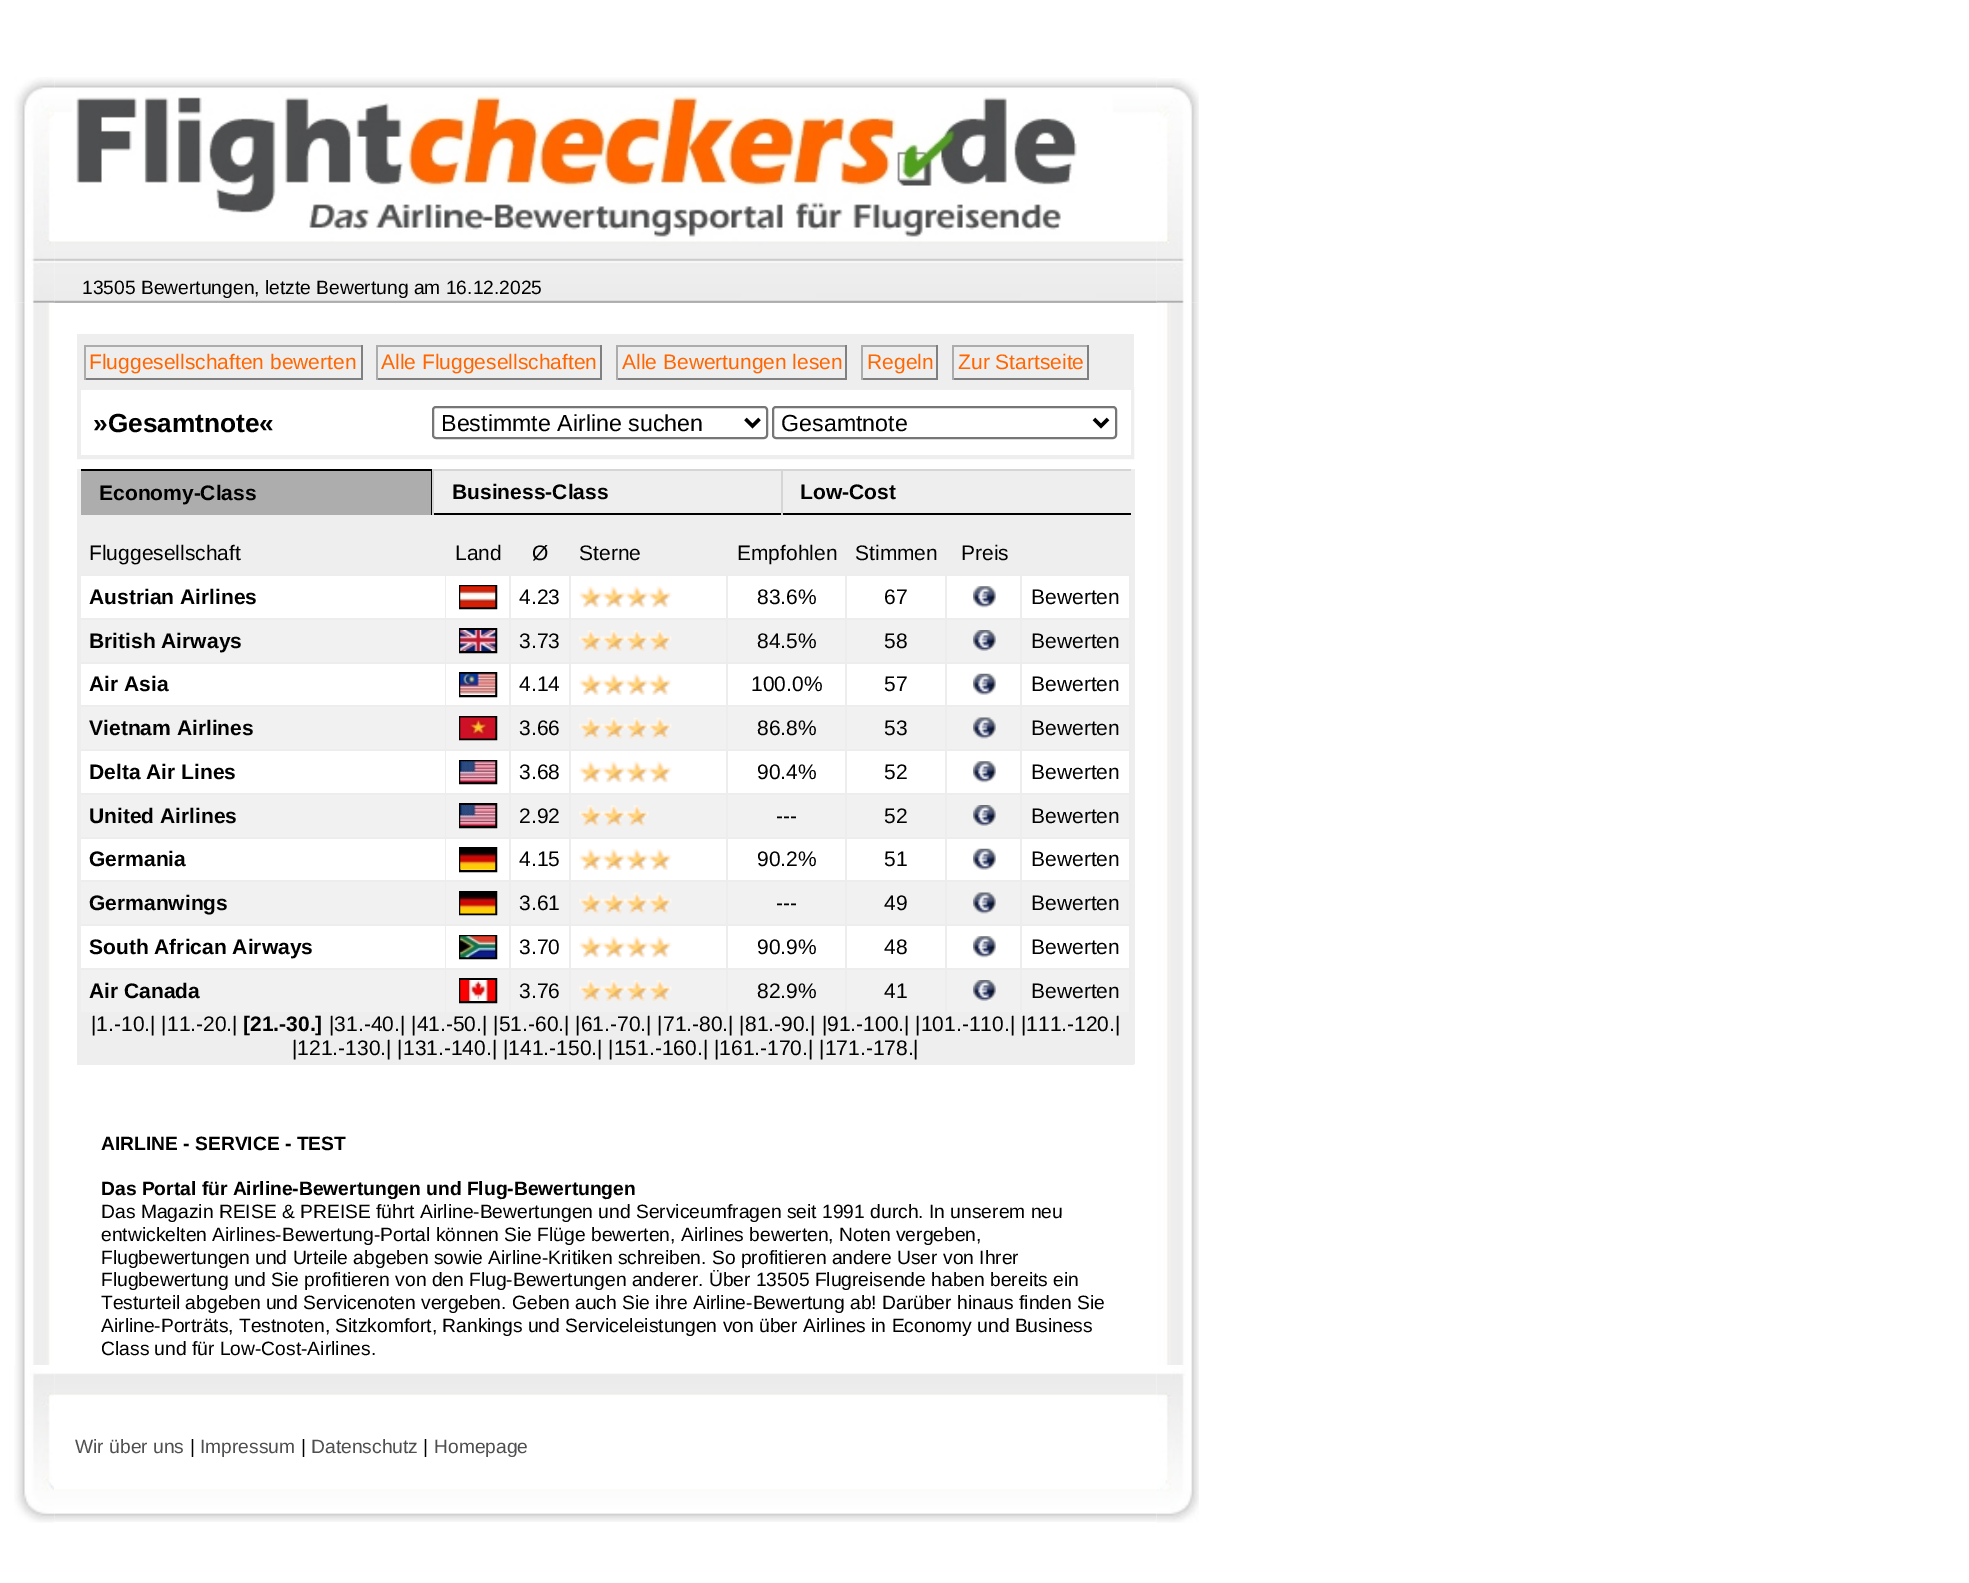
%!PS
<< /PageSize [1969 1583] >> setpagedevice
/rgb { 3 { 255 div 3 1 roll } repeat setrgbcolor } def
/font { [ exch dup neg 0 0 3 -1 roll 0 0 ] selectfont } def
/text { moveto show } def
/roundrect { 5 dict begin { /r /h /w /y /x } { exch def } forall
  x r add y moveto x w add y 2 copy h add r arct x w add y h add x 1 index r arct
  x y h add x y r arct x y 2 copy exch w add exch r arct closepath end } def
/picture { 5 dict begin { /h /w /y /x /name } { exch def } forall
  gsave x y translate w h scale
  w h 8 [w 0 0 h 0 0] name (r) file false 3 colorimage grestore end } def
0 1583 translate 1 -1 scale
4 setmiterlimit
255 255 255 rgb
0 0 1969 1583 rectfill
(img_01.rgb) 14 77 41 226 picture
(img_03.rgb) 1156 78 43 225 picture
(img_02.rgb) 54 77 1103 226 picture
(img_04.rgb) 15 302 39 1063 picture
238 238 238 rgb
77 334 1057 53 rectfill
172 172 172 rgb
84 345 278 2 rectfill
128 128 128 rgb
361 345 2 35 rectfill
84 378 278 2 rectfill
172 172 172 rgb
84 345 2 35 rectfill
376 345 226 2 rectfill
128 128 128 rgb
600 345 2 35 rectfill
376 378 226 2 rectfill
172 172 172 rgb
376 345 2 35 rectfill
616 345 231 2 rectfill
128 128 128 rgb
845 345 2 35 rectfill
616 378 231 2 rectfill
172 172 172 rgb
616 345 2 35 rectfill
861 345 77 2 rectfill
128 128 128 rgb
936 345 2 35 rectfill
861 378 77 2 rectfill
172 172 172 rgb
861 345 2 35 rectfill
952 345 137 2 rectfill
128 128 128 rgb
1087 345 2 35 rectfill
952 378 137 2 rectfill
172 172 172 rgb
952 345 2 35 rectfill
238 238 238 rgb
4 setlinewidth
79 389 1053 68 rectstroke
255 255 255 rgb
81 390 1050 65 rectfill
118 118 118 rgb
2 setlinewidth
433 407 334 31 3 roundrect stroke
0 0 0 rgb
3.5 setlinewidth
745.5 419 moveto 7 7 rlineto 7 -7 rlineto stroke
118 118 118 rgb
2 setlinewidth
773 407 343 31 3 roundrect stroke
0 0 0 rgb
3.5 setlinewidth
1094 419 moveto 7 7 rlineto 7 -7 rlineto stroke
238 238 238 rgb
1131 469 4 595 rectfill
77 1061 1057 4 rectfill
77 469 4 595 rectfill
173 173 173 rgb
81 471 350 44 rectfill
0 0 0 rgb
81 469 351 2 rectfill
431 469 1 46 rectfill
238 238 238 rgb
434 471 347 42 rectfill
213 213 213 rgb
432 469 699 2 rectfill
0 0 0 rgb
432 513 699 2 rectfill
213 213 213 rgb
432 469 2 46 rectfill
238 238 238 rgb
783 471 348 42 rectfill
213 213 213 rgb
781 469 2 46 rectfill
238 238 238 rgb
81 515 1050 17 rectfill
81 532 1050 42 rectfill
237 237 237 rgb
81 574 1050 2 rectfill
445 574 1 44 rectfill
509 574 2 44 rectfill
0 0 0 rgb
2 setlinewidth
460 586 36 22 rectstroke
(img_05.rgb) 460 586 36 22 picture
237 237 237 rgb
569 574 2 44 rectfill
726 574 2 44 rectfill
(img_06.rgb) 579 586 93 22 picture
845 574 2 44 rectfill
945 574 2 44 rectfill
1020 574 2 44 rectfill
(img_07.rgb) 973 586 23 22 picture
1129 574 2 44 rectfill
241 241 241 rgb
81 620 364 42 rectfill
237 237 237 rgb
81 618 1050 2 rectfill
445 618 1 44 rectfill
241 241 241 rgb
446 620 63 42 rectfill
237 237 237 rgb
509 618 2 44 rectfill
0 0 0 rgb
460 629 36 23 rectstroke
(img_08.rgb) 460 630 36 21 picture
241 241 241 rgb
511 620 58 42 rectfill
237 237 237 rgb
569 618 2 44 rectfill
241 241 241 rgb
571 620 155 42 rectfill
237 237 237 rgb
726 618 2 44 rectfill
(img_09.rgb) 579 630 93 21 picture
241 241 241 rgb
728 620 117 42 rectfill
237 237 237 rgb
845 618 2 44 rectfill
241 241 241 rgb
847 620 98 42 rectfill
237 237 237 rgb
945 618 2 44 rectfill
241 241 241 rgb
947 620 73 42 rectfill
237 237 237 rgb
1020 618 2 44 rectfill
(img_10.rgb) 973 630 23 21 picture
241 241 241 rgb
1022 620 107 42 rectfill
237 237 237 rgb
1129 618 2 44 rectfill
81 662 1050 2 rectfill
445 662 1 43 rectfill
509 662 2 43 rectfill
0 0 0 rgb
460 673 36 23 rectstroke
(img_11.rgb) 460 673 36 22 picture
237 237 237 rgb
569 662 2 43 rectfill
726 662 2 43 rectfill
(img_12.rgb) 579 673 93 22 picture
845 662 2 43 rectfill
945 662 2 43 rectfill
1020 662 2 43 rectfill
(img_13.rgb) 973 673 23 22 picture
1129 662 2 43 rectfill
241 241 241 rgb
81 707 364 42 rectfill
237 237 237 rgb
81 705 1050 2 rectfill
445 705 1 44 rectfill
241 241 241 rgb
446 707 63 42 rectfill
237 237 237 rgb
509 705 2 44 rectfill
0 0 0 rgb
460 717 36 22 rectstroke
(img_14.rgb) 460 717 36 22 picture
241 241 241 rgb
511 707 58 42 rectfill
237 237 237 rgb
569 705 2 44 rectfill
241 241 241 rgb
571 707 155 42 rectfill
237 237 237 rgb
726 705 2 44 rectfill
(img_15.rgb) 579 717 93 22 picture
241 241 241 rgb
728 707 117 42 rectfill
237 237 237 rgb
845 705 2 44 rectfill
241 241 241 rgb
847 707 98 42 rectfill
237 237 237 rgb
945 705 2 44 rectfill
241 241 241 rgb
947 707 73 42 rectfill
237 237 237 rgb
1020 705 2 44 rectfill
(img_16.rgb) 973 717 23 22 picture
241 241 241 rgb
1022 707 107 42 rectfill
237 237 237 rgb
1129 705 2 44 rectfill
81 749 1050 2 rectfill
445 749 1 44 rectfill
509 749 2 44 rectfill
0 0 0 rgb
460 761 36 22 rectstroke
(img_17.rgb) 460 761 36 22 picture
237 237 237 rgb
569 749 2 44 rectfill
726 749 2 44 rectfill
(img_06.rgb) 579 761 93 22 picture
845 749 2 44 rectfill
945 749 2 44 rectfill
1020 749 2 44 rectfill
(img_07.rgb) 973 761 23 22 picture
1129 749 2 44 rectfill
241 241 241 rgb
81 795 364 42 rectfill
237 237 237 rgb
81 793 1050 2 rectfill
445 793 1 44 rectfill
241 241 241 rgb
446 795 63 42 rectfill
237 237 237 rgb
509 793 2 44 rectfill
0 0 0 rgb
460 804 36 23 rectstroke
(img_18.rgb) 460 805 36 21 picture
241 241 241 rgb
511 795 58 42 rectfill
237 237 237 rgb
569 793 2 44 rectfill
241 241 241 rgb
571 795 155 42 rectfill
237 237 237 rgb
726 793 2 44 rectfill
(img_19.rgb) 579 805 70 21 picture
241 241 241 rgb
728 795 117 42 rectfill
237 237 237 rgb
845 793 2 44 rectfill
241 241 241 rgb
847 795 98 42 rectfill
237 237 237 rgb
945 793 2 44 rectfill
241 241 241 rgb
947 795 73 42 rectfill
237 237 237 rgb
1020 793 2 44 rectfill
(img_10.rgb) 973 805 23 21 picture
241 241 241 rgb
1022 795 107 42 rectfill
237 237 237 rgb
1129 793 2 44 rectfill
81 837 1050 2 rectfill
445 837 1 43 rectfill
509 837 2 43 rectfill
0 0 0 rgb
460 848 36 23 rectstroke
(img_20.rgb) 460 849 36 21 picture
237 237 237 rgb
569 837 2 43 rectfill
726 837 2 43 rectfill
(img_12.rgb) 579 848 93 22 picture
845 837 2 43 rectfill
945 837 2 43 rectfill
1020 837 2 43 rectfill
(img_13.rgb) 973 848 23 22 picture
1129 837 2 43 rectfill
241 241 241 rgb
81 882 364 42 rectfill
237 237 237 rgb
81 880 1050 2 rectfill
445 880 1 44 rectfill
241 241 241 rgb
446 882 63 42 rectfill
237 237 237 rgb
509 880 2 44 rectfill
0 0 0 rgb
460 892 36 22 rectstroke
(img_21.rgb) 460 893 36 21 picture
241 241 241 rgb
511 882 58 42 rectfill
237 237 237 rgb
569 880 2 44 rectfill
241 241 241 rgb
571 882 155 42 rectfill
237 237 237 rgb
726 880 2 44 rectfill
(img_15.rgb) 579 892 93 22 picture
241 241 241 rgb
728 882 117 42 rectfill
237 237 237 rgb
845 880 2 44 rectfill
241 241 241 rgb
847 882 98 42 rectfill
237 237 237 rgb
945 880 2 44 rectfill
241 241 241 rgb
947 882 73 42 rectfill
237 237 237 rgb
1020 880 2 44 rectfill
(img_16.rgb) 973 892 23 22 picture
241 241 241 rgb
1022 882 107 42 rectfill
237 237 237 rgb
1129 880 2 44 rectfill
81 924 1050 2 rectfill
445 924 1 44 rectfill
509 924 2 44 rectfill
0 0 0 rgb
460 936 36 22 rectstroke
(img_22.rgb) 460 936 36 22 picture
237 237 237 rgb
569 924 2 44 rectfill
726 924 2 44 rectfill
(img_06.rgb) 579 936 93 22 picture
845 924 2 44 rectfill
945 924 2 44 rectfill
1020 924 2 44 rectfill
(img_07.rgb) 973 936 23 22 picture
1129 924 2 44 rectfill
241 241 241 rgb
81 970 364 42 rectfill
237 237 237 rgb
81 968 1050 2 rectfill
445 968 1 44 rectfill
241 241 241 rgb
446 970 63 42 rectfill
237 237 237 rgb
509 968 2 44 rectfill
0 0 0 rgb
460 979 36 23 rectstroke
(img_23.rgb) 460 980 36 21 picture
241 241 241 rgb
511 970 58 42 rectfill
237 237 237 rgb
569 968 2 44 rectfill
241 241 241 rgb
571 970 155 42 rectfill
237 237 237 rgb
726 968 2 44 rectfill
(img_09.rgb) 579 980 93 21 picture
241 241 241 rgb
728 970 117 42 rectfill
237 237 237 rgb
845 968 2 44 rectfill
241 241 241 rgb
847 970 98 42 rectfill
237 237 237 rgb
945 968 2 44 rectfill
241 241 241 rgb
947 970 73 42 rectfill
237 237 237 rgb
1020 968 2 44 rectfill
(img_10.rgb) 973 980 23 21 picture
241 241 241 rgb
1022 970 107 42 rectfill
237 237 237 rgb
1129 968 2 44 rectfill
238 238 238 rgb
81 1012 1050 49 rectfill
(img_24.rgb) 1157 302 42 1063 picture
(img_25.rgb) 14 1365 41 158 picture
(img_26.rgb) 54 1373 1103 149 picture
(img_27.rgb) 1157 1365 42 158 picture
/LiberationSans-Regular 19.25 font
0 0 0 rgb
(13505 Bewertungen, letzte Bewertung am 16.12.2025) 82 294 text
/LiberationSans-Regular 21 font
255 102 0 rgb
(Fluggesellschaften bewerten) 89 369 text
(Alle Fluggesellschaften) 381 369 text
(Alle Bewertungen lesen) 622 369 text
(Regeln) 867 369 text
(Zur Startseite) 958 369 text
/LiberationSans-Bold 26.25 font
0 0 0 rgb
(»Gesamtnote«) 93 432 text
/LiberationSans-Regular 23.25 font
(Bestimmte Airline suchen) 441 431 text
(Gesamtnote) 781 431 text
/LiberationSans-Bold 21 font
(Economy-Class) 99 500 text
(Business-Class) 452 499 text
(Low-Cost) 800 499 text
/LiberationSans-Regular 21 font
(Fluggesellschaft) 89 560 text
(Land) 455 560 text
(Ø) 532 560 text
(Sterne) 579 560 text
(Empfohlen) 737 560 text
(Stimmen) 855 560 text
(Preis) 961 560 text
/LiberationSans-Bold 21 font
(Austrian Airlines) 89 604 text
/LiberationSans-Regular 21 font
(4.23) 519 604 text
(83.6%) 757 604 text
(67) 884 604 text
(Bewerten) 1031 604 text
/LiberationSans-Bold 21 font
(British Airways) 89 648 text
/LiberationSans-Regular 21 font
(3.73) 519 648 text
(84.5%) 757 648 text
(58) 884 648 text
(Bewerten) 1031 648 text
/LiberationSans-Bold 21 font
(Air Asia) 89 691 text
/LiberationSans-Regular 21 font
(4.14) 519 691 text
(100.0%) 751 691 text
(57) 884 691 text
(Bewerten) 1031 691 text
/LiberationSans-Bold 21 font
(Vietnam Airlines) 89 735 text
/LiberationSans-Regular 21 font
(3.66) 519 735 text
(86.8%) 757 735 text
(53) 884 735 text
(Bewerten) 1031 735 text
/LiberationSans-Bold 21 font
(Delta Air Lines) 89 779 text
/LiberationSans-Regular 21 font
(3.68) 519 779 text
(90.4%) 757 779 text
(52) 884 779 text
(Bewerten) 1031 779 text
/LiberationSans-Bold 21 font
(United Airlines) 89 823 text
/LiberationSans-Regular 21 font
(2.92) 519 823 text
(---) 776 823 text
(52) 884 823 text
(Bewerten) 1031 823 text
/LiberationSans-Bold 21 font
(Germania) 89 866 text
/LiberationSans-Regular 21 font
(4.15) 519 866 text
(90.2%) 757 866 text
(51) 884 866 text
(Bewerten) 1031 866 text
/LiberationSans-Bold 21 font
(Germanwings) 89 910 text
/LiberationSans-Regular 21 font
(3.61) 519 910 text
(---) 776 910 text
(49) 884 910 text
(Bewerten) 1031 910 text
/LiberationSans-Bold 21 font
(South African Airways) 89 954 text
/LiberationSans-Regular 21 font
(3.70) 519 954 text
(90.9%) 757 954 text
(48) 884 954 text
(Bewerten) 1031 954 text
/LiberationSans-Bold 21 font
(Air Canada) 89 998 text
/LiberationSans-Regular 21 font
(3.76) 519 998 text
(82.9%) 757 998 text
(41) 884 998 text
(Bewerten) 1031 998 text
(|1.-10.| |11.-20.|) 91 1031 text
/LiberationSans-Bold 21 font
([21.-30.]) 243 1031 text
/LiberationSans-Regular 21 font
(|31.-40.| |41.-50.| |51.-60.| |61.-70.| |71.-80.| |81.-90.| |91.-100.| |101.-110.| |111.-120.|) 329 1031 text
(|121.-130.| |131.-140.| |141.-150.| |151.-160.| |161.-170.| |171.-178.|) 292 1055 text
/LiberationSans-Bold 19.25 font
(AIRLINE - SERVICE - TEST) 101 1150 text
(Das Portal für Airline-Bewertungen und Flug-Bewertungen) 101 1195 text
/LiberationSans-Regular 19.25 font
(Das Magazin REISE & PREISE führt Airline-Bewertungen und Serviceumfragen seit 1991 durch. In unserem neu) 101 1218 text
(entwickelten Airlines-Bewertung-Portal können Sie Flüge bewerten, Airlines bewerten, Noten vergeben,) 101 1241 text
(Flugbewertungen und Urteile abgeben sowie Airline-Kritiken schreiben. So profitieren andere User von Ihrer) 101 1264 text
(Flugbewertung und Sie profitieren von den Flug-Bewertungen anderer. Über 13505 Flugreisende haben bereits ein) 101 1286 text
(Testurteil abgeben und Servicenoten vergeben. Geben auch Sie ihre Airline-Bewertung ab! Darüber hinaus finden Sie) 101 1309 text
(Airline-Porträts, Testnoten, Sitzkomfort, Rankings und Serviceleistungen von über Airlines in Economy und Business) 101 1332 text
(Class und für Low-Cost-Airlines.) 101 1355 text
79 79 81 rgb
(Wir über uns) 75 1453 text
0 0 0 rgb
(|) 190 1453 text
79 79 81 rgb
(Impressum) 200 1453 text
0 0 0 rgb
(|) 301 1453 text
79 79 81 rgb
(Datenschutz) 311 1453 text
0 0 0 rgb
(|) 423 1453 text
79 79 81 rgb
(Homepage) 434 1453 text
showpage
